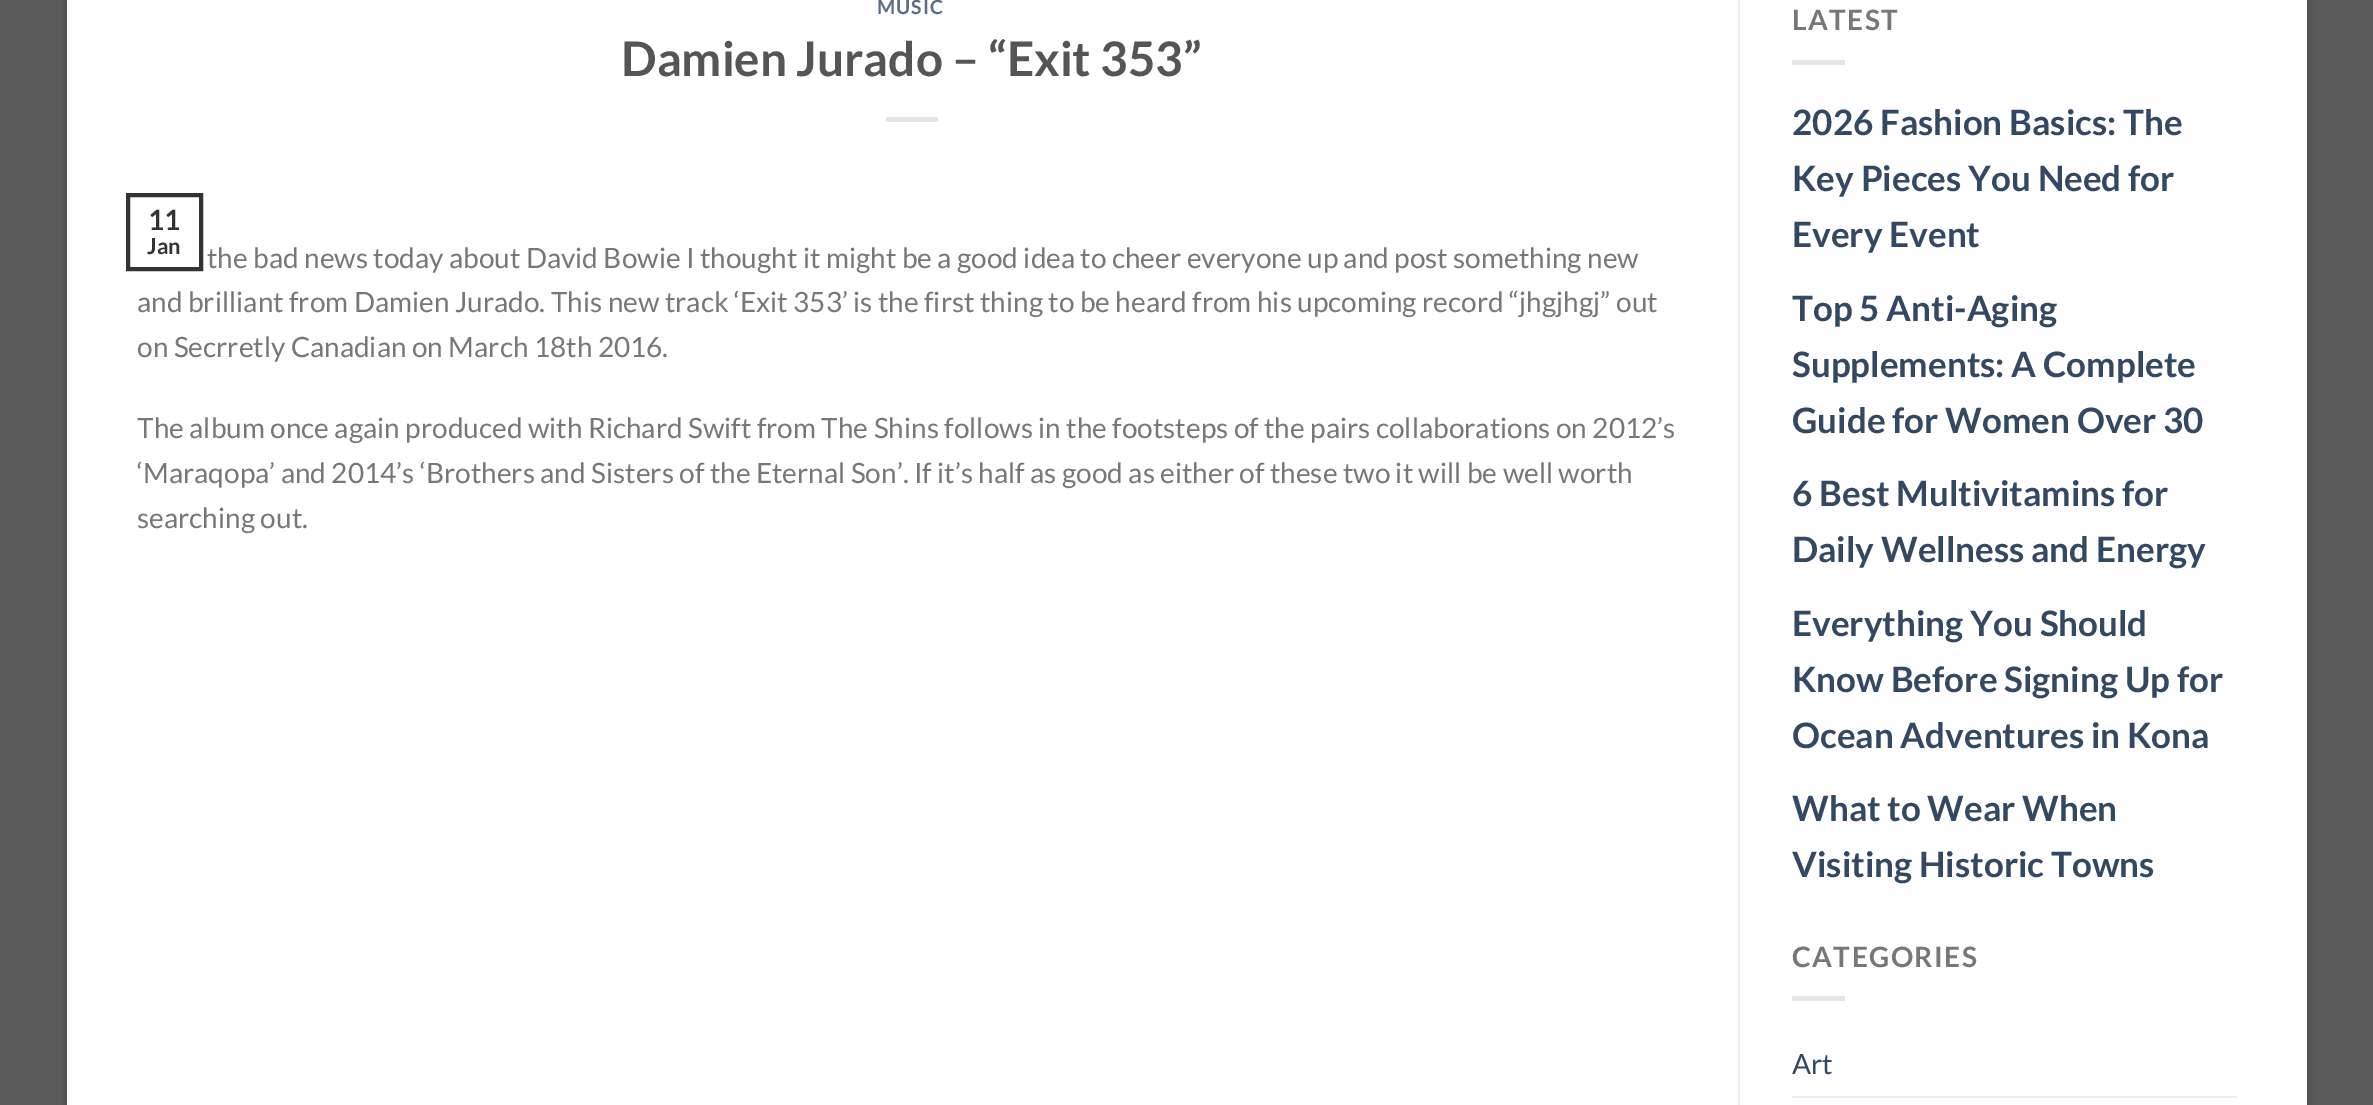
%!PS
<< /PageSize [2373 1105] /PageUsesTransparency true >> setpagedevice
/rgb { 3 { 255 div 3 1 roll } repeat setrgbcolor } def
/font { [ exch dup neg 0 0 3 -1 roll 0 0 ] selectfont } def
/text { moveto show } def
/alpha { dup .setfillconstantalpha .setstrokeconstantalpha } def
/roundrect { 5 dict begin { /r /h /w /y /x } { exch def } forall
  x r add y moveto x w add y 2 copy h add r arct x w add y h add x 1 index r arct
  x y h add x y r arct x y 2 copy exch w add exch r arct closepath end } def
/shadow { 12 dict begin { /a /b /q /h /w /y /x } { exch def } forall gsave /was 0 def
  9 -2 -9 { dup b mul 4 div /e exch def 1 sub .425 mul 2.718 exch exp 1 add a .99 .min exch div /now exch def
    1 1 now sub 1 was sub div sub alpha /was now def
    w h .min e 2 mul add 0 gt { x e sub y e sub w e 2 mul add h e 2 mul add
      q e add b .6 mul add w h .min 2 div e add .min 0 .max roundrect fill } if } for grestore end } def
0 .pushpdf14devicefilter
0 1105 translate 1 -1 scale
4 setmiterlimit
91 91 91 rgb
0 0 2373 1105 rectfill
0 0 0 rgb
67 -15 2240 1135 0 5 0.23 shadow
255 255 255 rgb
67 0 2240 1105 rectfill
230 230 230 rgb
886 117 52 5 rectfill
51 51 51 rgb
4 setlinewidth
128 195 73 74 rectstroke
236 236 236 rgb
1738 0 2 1105 rectfill
230 230 230 rgb
1792 60 53 5 rectfill
1792 996 53 5 rectfill
236 236 236 rgb
1792 1096 445 2 rectfill
/Lato-Bold 19.5 font
92 109 129 rgb
877 14 moveto 1 0 (MUSIC) ashow
/Lato-Bold 47.6 font
85 85 85 rgb
(Damien Jurado – “Exit 353”) 621 76 text
/Lato-Bold 28 font
51 51 51 rgb
(11) 148 230 text
/Lato-Bold 22 font
(Jan) 147 254 text
/Lato-Regular 28 font
119 119 119 rgb
(the bad news today about David Bowie I thought it might be a good idea to cheer everyone up and post something new) 207 268 text
(and brilliant from Damien Jurado. This new track ‘Exit 353’ is the first thing to be heard from his upcoming record “jhgjhgj” out) 137 312 text
(on Secrretly Canadian on March 18th 2016.) 137 357 text
(The album once again produced with Richard Swift from The Shins follows in the footsteps of the pairs collaborations on 2012’s) 137 438 text
(‘Maraqopa’ and 2014’s ‘Brothers and Sisters of the Eternal Son’. If it’s half as good as either of these two it will be well worth) 137 483 text
(searching out.) 137 528 text
/Lato-Bold 28 font
1792 30 moveto 1.4 0 (LATEST) ashow
/Lato-Bold 35 font
51 72 98 rgb
(2026 Fashion Basics: The) 1792 135 text
(Key Pieces You Need for) 1792 191 text
(Every Event) 1792 247 text
(Top 5 Anti-Aging) 1792 321 text
(Supplements: A Complete) 1792 377 text
(Guide for Women Over 30) 1792 433 text
(6 Best Multivitamins for) 1792 506 text
(Daily Wellness and Energy) 1792 562 text
(Everything You Should) 1792 636 text
(Know Before Signing Up for) 1792 692 text
(Ocean Adventures in Kona) 1792 748 text
(What to Wear When) 1792 821 text
(Visiting Historic Towns) 1792 877 text
/Lato-Bold 28 font
119 119 119 rgb
1792 967 moveto 1.4 0 (CATEGORIES) ashow
/Lato-Regular 28 font
51 72 98 rgb
(Art) 1792 1074 text
.poppdf14devicefilter showpage
